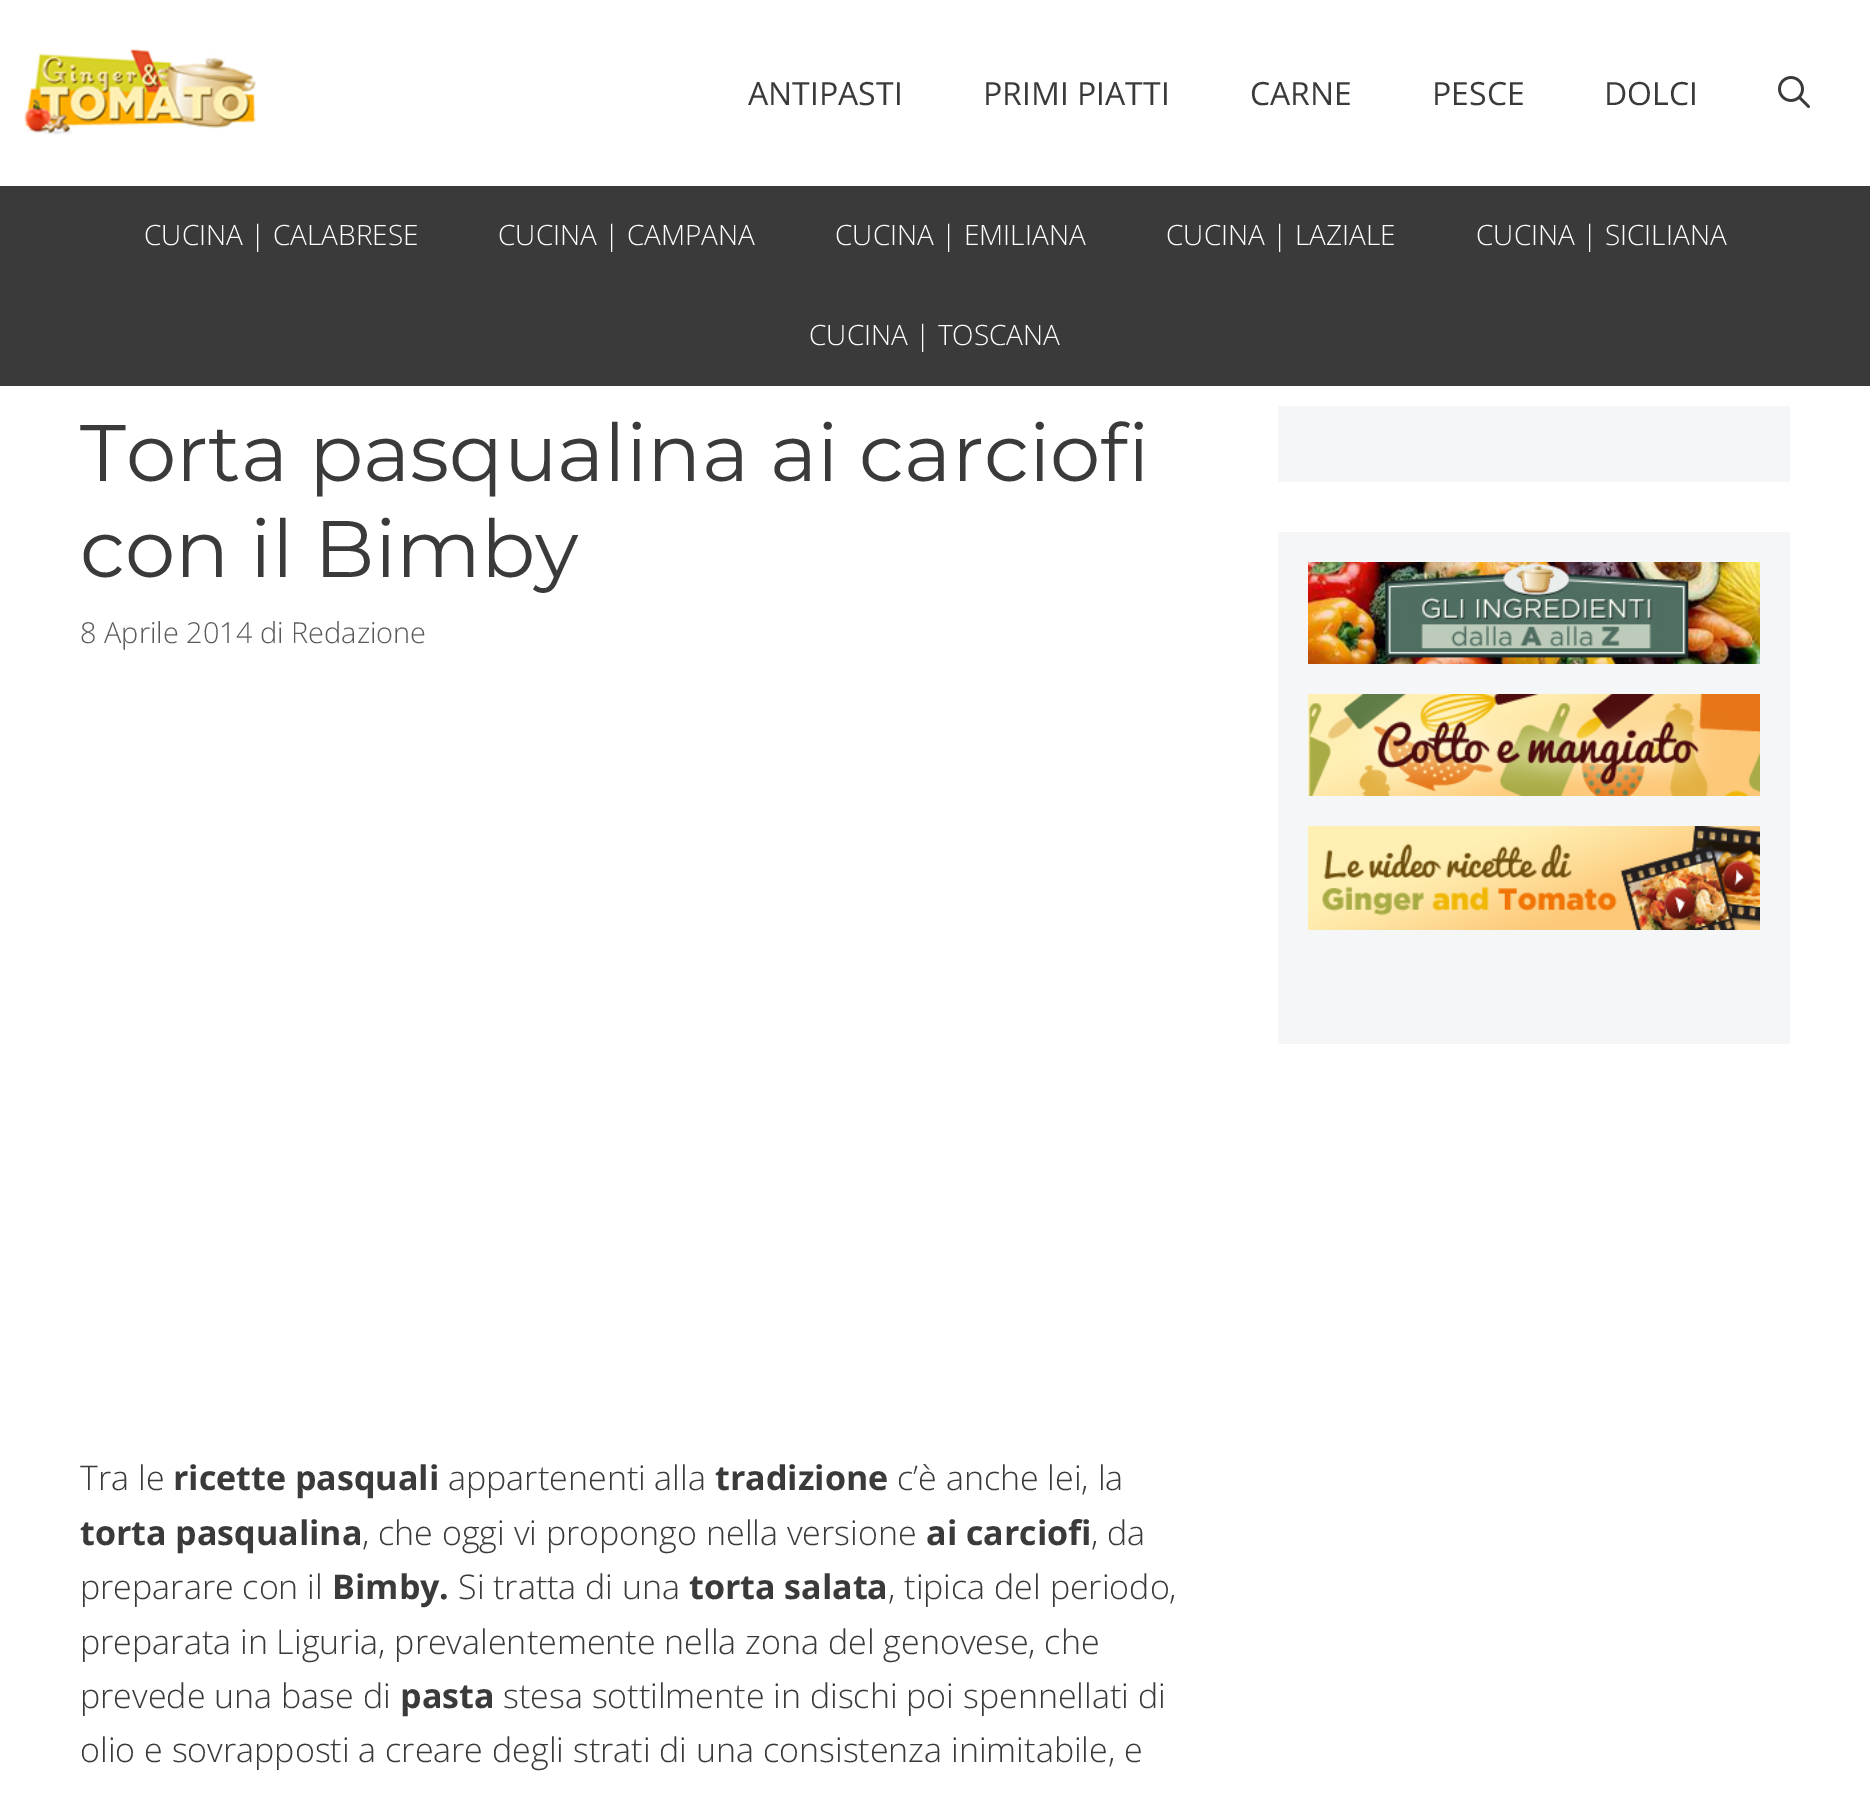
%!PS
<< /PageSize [1870 1808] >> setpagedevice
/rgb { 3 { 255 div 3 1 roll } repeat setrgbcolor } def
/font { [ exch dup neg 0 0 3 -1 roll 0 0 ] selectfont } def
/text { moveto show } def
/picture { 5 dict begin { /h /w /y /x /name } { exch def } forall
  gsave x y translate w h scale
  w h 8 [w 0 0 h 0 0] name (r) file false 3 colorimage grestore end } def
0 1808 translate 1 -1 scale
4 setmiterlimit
58 58 58 rgb
0 0 1870 1808 rectfill
255 255 255 rgb
0 0 1870 186 rectfill
(img_01.rgb) 24 49 232 86 picture
(img_02.rgb) 1778 76 32 32 picture
0 386 1870 1422 rectfill
244 246 247 rgb
1278 406 512 76 rectfill
1278 532 512 512 rectfill
(img_03.rgb) 1308 562 452 102 picture
(img_04.rgb) 1308 694 452 102 picture
(img_05.rgb) 1308 826 452 104 picture
/OpenSans-Regular 32 font
58 58 58 rgb
(ANTIPASTI) 748 105 text
(PRIMI PIATTI) 983 105 text
(CARNE) 1250 105 text
(PESCE) 1432 105 text
(DOLCI) 1604 105 text
/OpenSans-Light 28 font
255 255 255 rgb
(CUCINA | CALABRESE) 144 245 text
(CUCINA | CAMPANA) 498 245 text
(CUCINA | EMILIANA) 835 245 text
(CUCINA | LAZIALE) 1166 245 text
(CUCINA | SICILIANA) 1476 245 text
(CUCINA | TOSCANA) 809 345 text
/Montserrat-Regular 80 font
58 58 58 rgb
(Torta pasqualina ai carciofi) 80 481 text
(con il Bimby) 80 577 text
/OpenSans-Light 28.9 font
89 89 89 rgb
(8 Aprile 2014 di Redazione) 80 643 text
/OpenSans-Light 34 font
58 58 58 rgb
(Tra le) 80 1490 text
/OpenSans-Bold 34 font
(ricette pasquali) 173 1490 text
/OpenSans-Light 34 font
(appartenenti alla) 448 1490 text
/OpenSans-Bold 34 font
(tradizione) 715 1490 text
/OpenSans-Light 34 font
(c’è anche lei, la) 897 1490 text
/OpenSans-Bold 34 font
(torta pasqualina) 80 1545 text
/OpenSans-Light 34 font
(, che oggi vi propongo nella versione) 362 1545 text
/OpenSans-Bold 34 font
(ai carciofi) 926 1545 text
/OpenSans-Light 34 font
(, da) 1091 1545 text
(preparare con il) 80 1599 text
/OpenSans-Bold 34 font
(Bimby.) 332 1599 text
/OpenSans-Light 34 font
(Si tratta di una) 458 1599 text
/OpenSans-Bold 34 font
(torta salata) 689 1599 text
/OpenSans-Light 34 font
(, tipica del periodo,) 888 1599 text
(preparata in Liguria, prevalentemente nella zona del genovese, che) 80 1654 text
(prevede una base di) 80 1708 text
/OpenSans-Bold 34 font
(pasta) 400 1708 text
/OpenSans-Light 34 font
(stesa sottilmente in dischi poi spennellati di) 503 1708 text
(olio e sovrapposti a creare degli strati di una consistenza inimitabile, e) 80 1762 text
showpage
